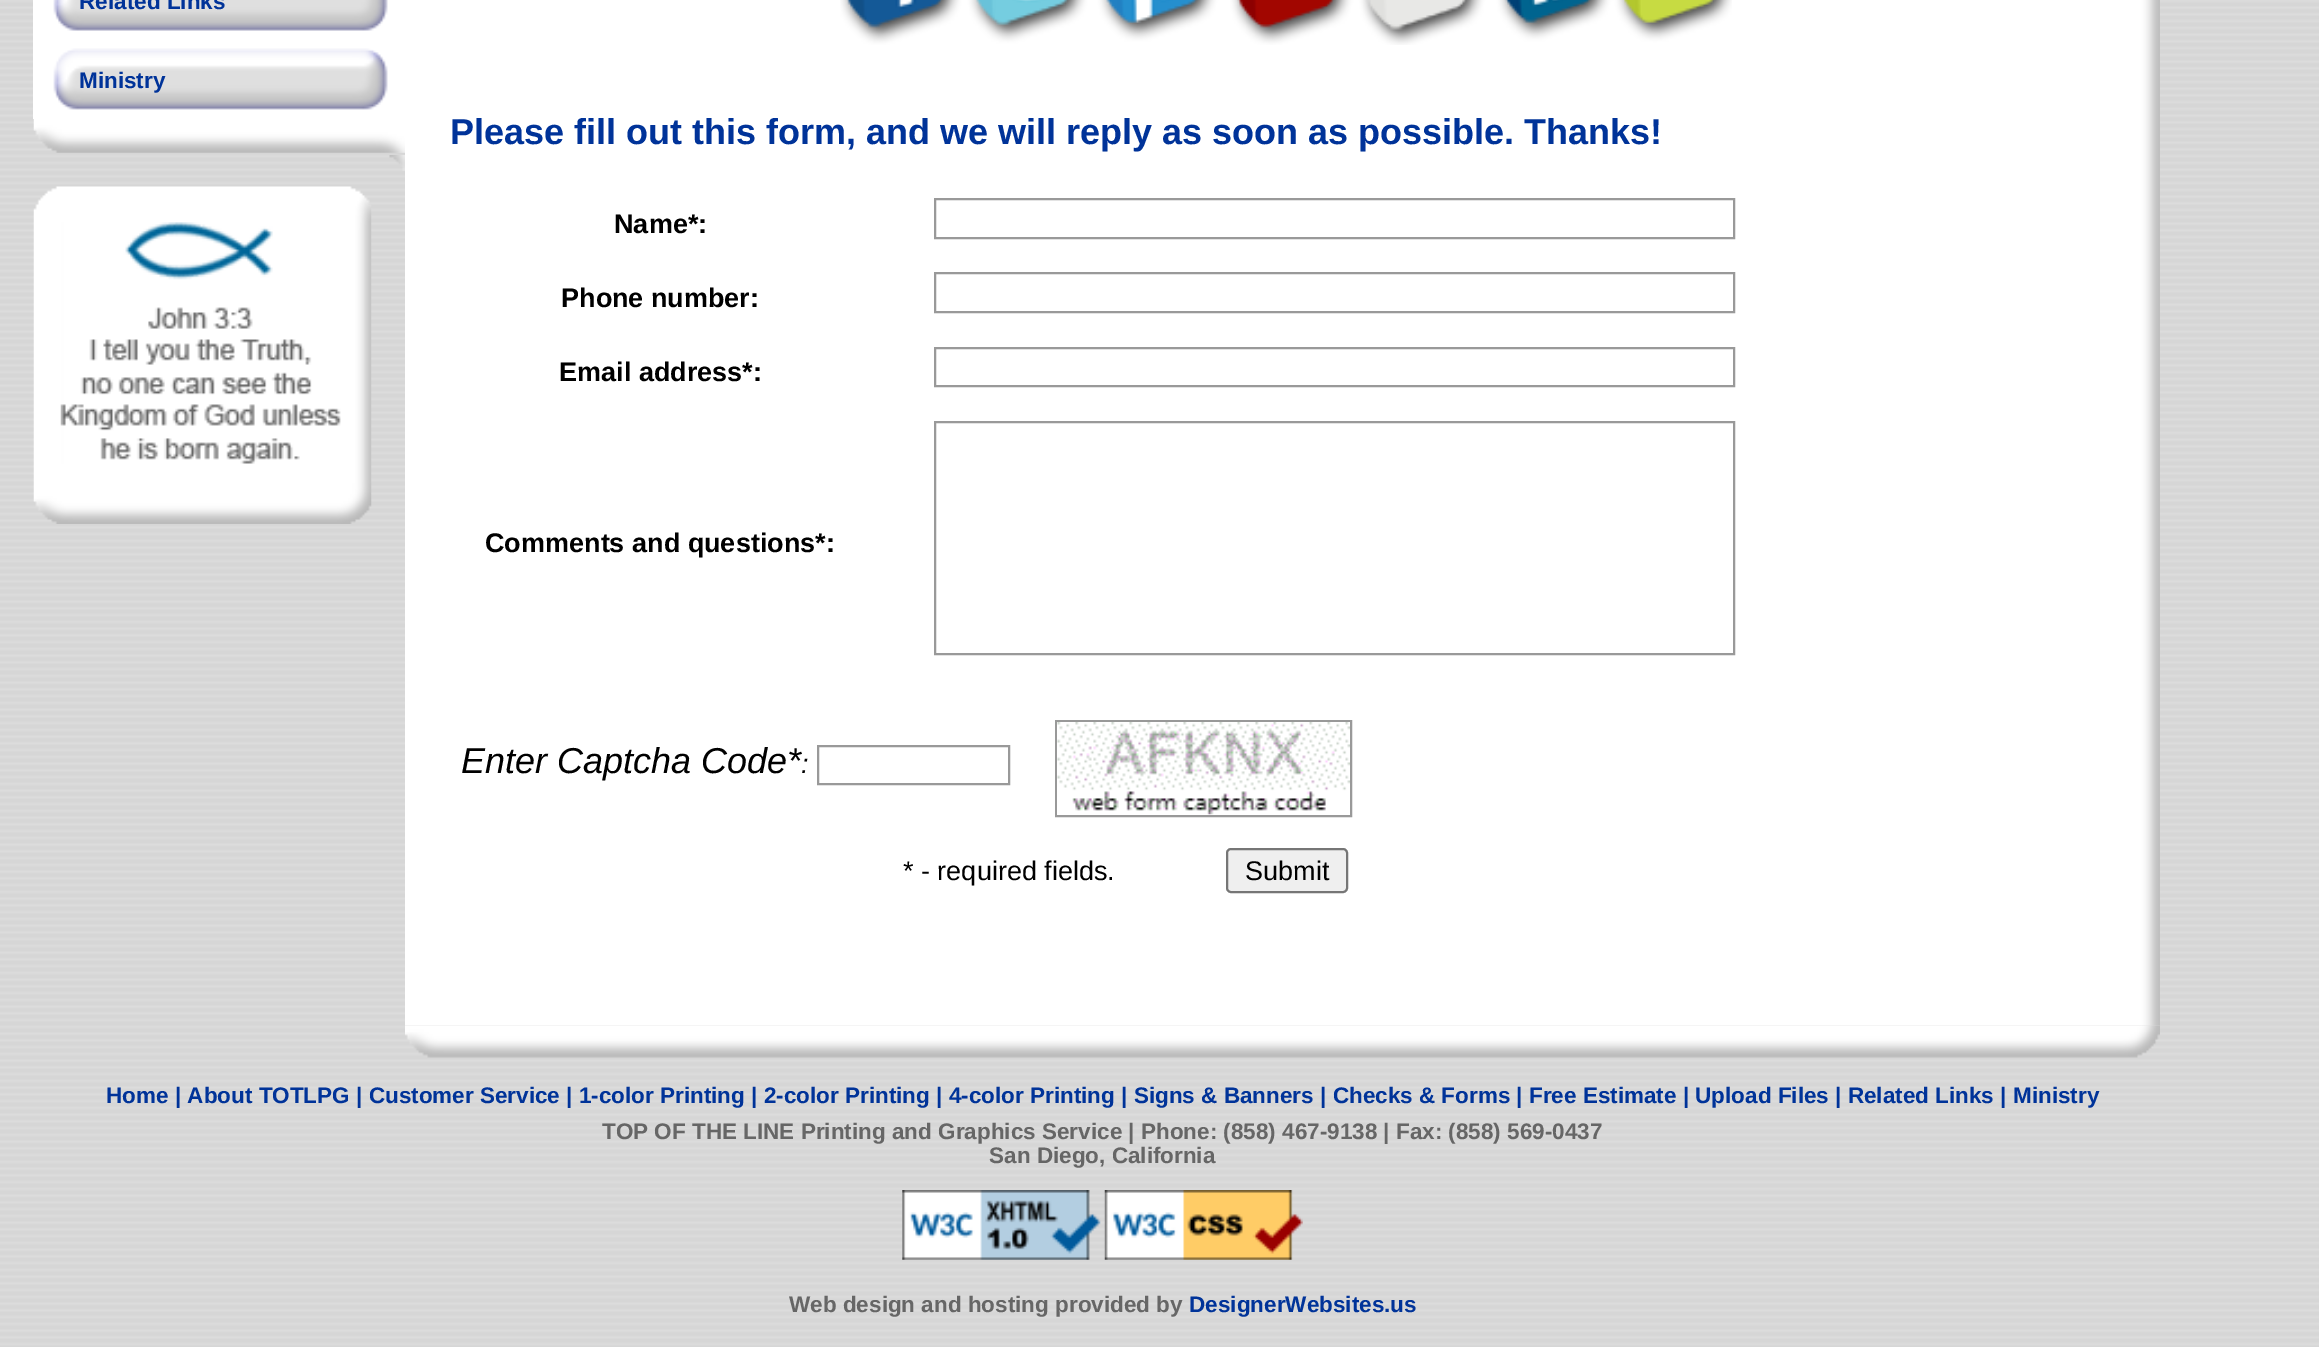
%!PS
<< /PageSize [2319 1347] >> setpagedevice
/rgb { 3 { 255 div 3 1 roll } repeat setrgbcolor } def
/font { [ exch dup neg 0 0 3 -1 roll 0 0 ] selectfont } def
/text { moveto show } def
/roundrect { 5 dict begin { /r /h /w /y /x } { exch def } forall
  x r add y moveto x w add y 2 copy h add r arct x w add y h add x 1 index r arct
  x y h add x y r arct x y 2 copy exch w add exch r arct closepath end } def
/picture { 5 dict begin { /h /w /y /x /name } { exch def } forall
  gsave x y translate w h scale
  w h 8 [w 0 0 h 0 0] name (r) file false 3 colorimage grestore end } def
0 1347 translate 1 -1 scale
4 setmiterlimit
255 255 255 rgb
0 0 2319 1347 rectfill
(img_01.rgb) 0 0 2319 1347 picture
(img_02.rgb) 389 155 16 16 picture
33 0 372 119 rectfill
(img_03.rgb) 53 0 335 31 picture
(img_04.rgb) 53 48 335 62 picture
(img_05.rgb) 33 119 372 34 picture
(img_06.rgb) 33 186 339 338 picture
(img_07.rgb) 60 222 281 242 picture
(img_08.rgb) 405 0 1755 1026 picture
(img_09.rgb) 840 0 892 45 picture
153 153 153 rgb
2 setlinewidth
935 199 799 39 rectstroke
935 273 799 39 rectstroke
935 348 799 38 rectstroke
935 422 799 232 rectstroke
818 746 191 38 rectstroke
1056 721 295 95 rectstroke
(img_10.rgb) 1057 722 293 93 picture
239 239 239 rgb
1227 849 120 43 4 roundrect gsave fill grestore
118 118 118 rgb
stroke
(img_11.rgb) 405 1026 1755 32 picture
(img_12.rgb) 902 1190 199 70 picture
(img_13.rgb) 1104 1190 199 70 picture
/LiberationSans-Bold 22.5 font
0 51 153 rgb
(Related Links) 79 9 text
(Ministry) 79 88 text
/LiberationSans-Bold 36 font
(Please fill out this form, and we will reply as soon as possible. Thanks!) 450 144 text
/LiberationSans-Bold 27 font
0 0 0 rgb
(Name*:) 614 233 text
(Phone number:) 561 307 text
(Email address*:) 559 381 text
(Comments and questions*:) 485 552 text
/LiberationSans-Italic 36 font
(Enter Captcha Code*) 461 773 text
/LiberationSans-Italic 27 font
(:) 801 773 text
/LiberationSans-Regular 27 font
(* - required fields.) 903 880 text
(Submit) 1245 880 text
/LiberationSans-Bold 22.5 font
0 51 153 rgb
(Home | About TOTLPG | Customer Service | 1-color Printing | 2-color Printing | 4-color Printing | Signs & Banners | Checks & Forms | Free Estimate | Upload Files | Related Links | Ministry) 106 1103 text
102 102 102 rgb
(TOP OF THE LINE Printing and Graphics Service | Phone: \(858\) 467-9138 | Fax: \(858\) 569-0437) 602 1139 text
(San Diego, California) 989 1163 text
(Web design and hosting provided by) 789 1312 text
0 51 153 rgb
(DesignerWebsites.us) 1189 1312 text
showpage
